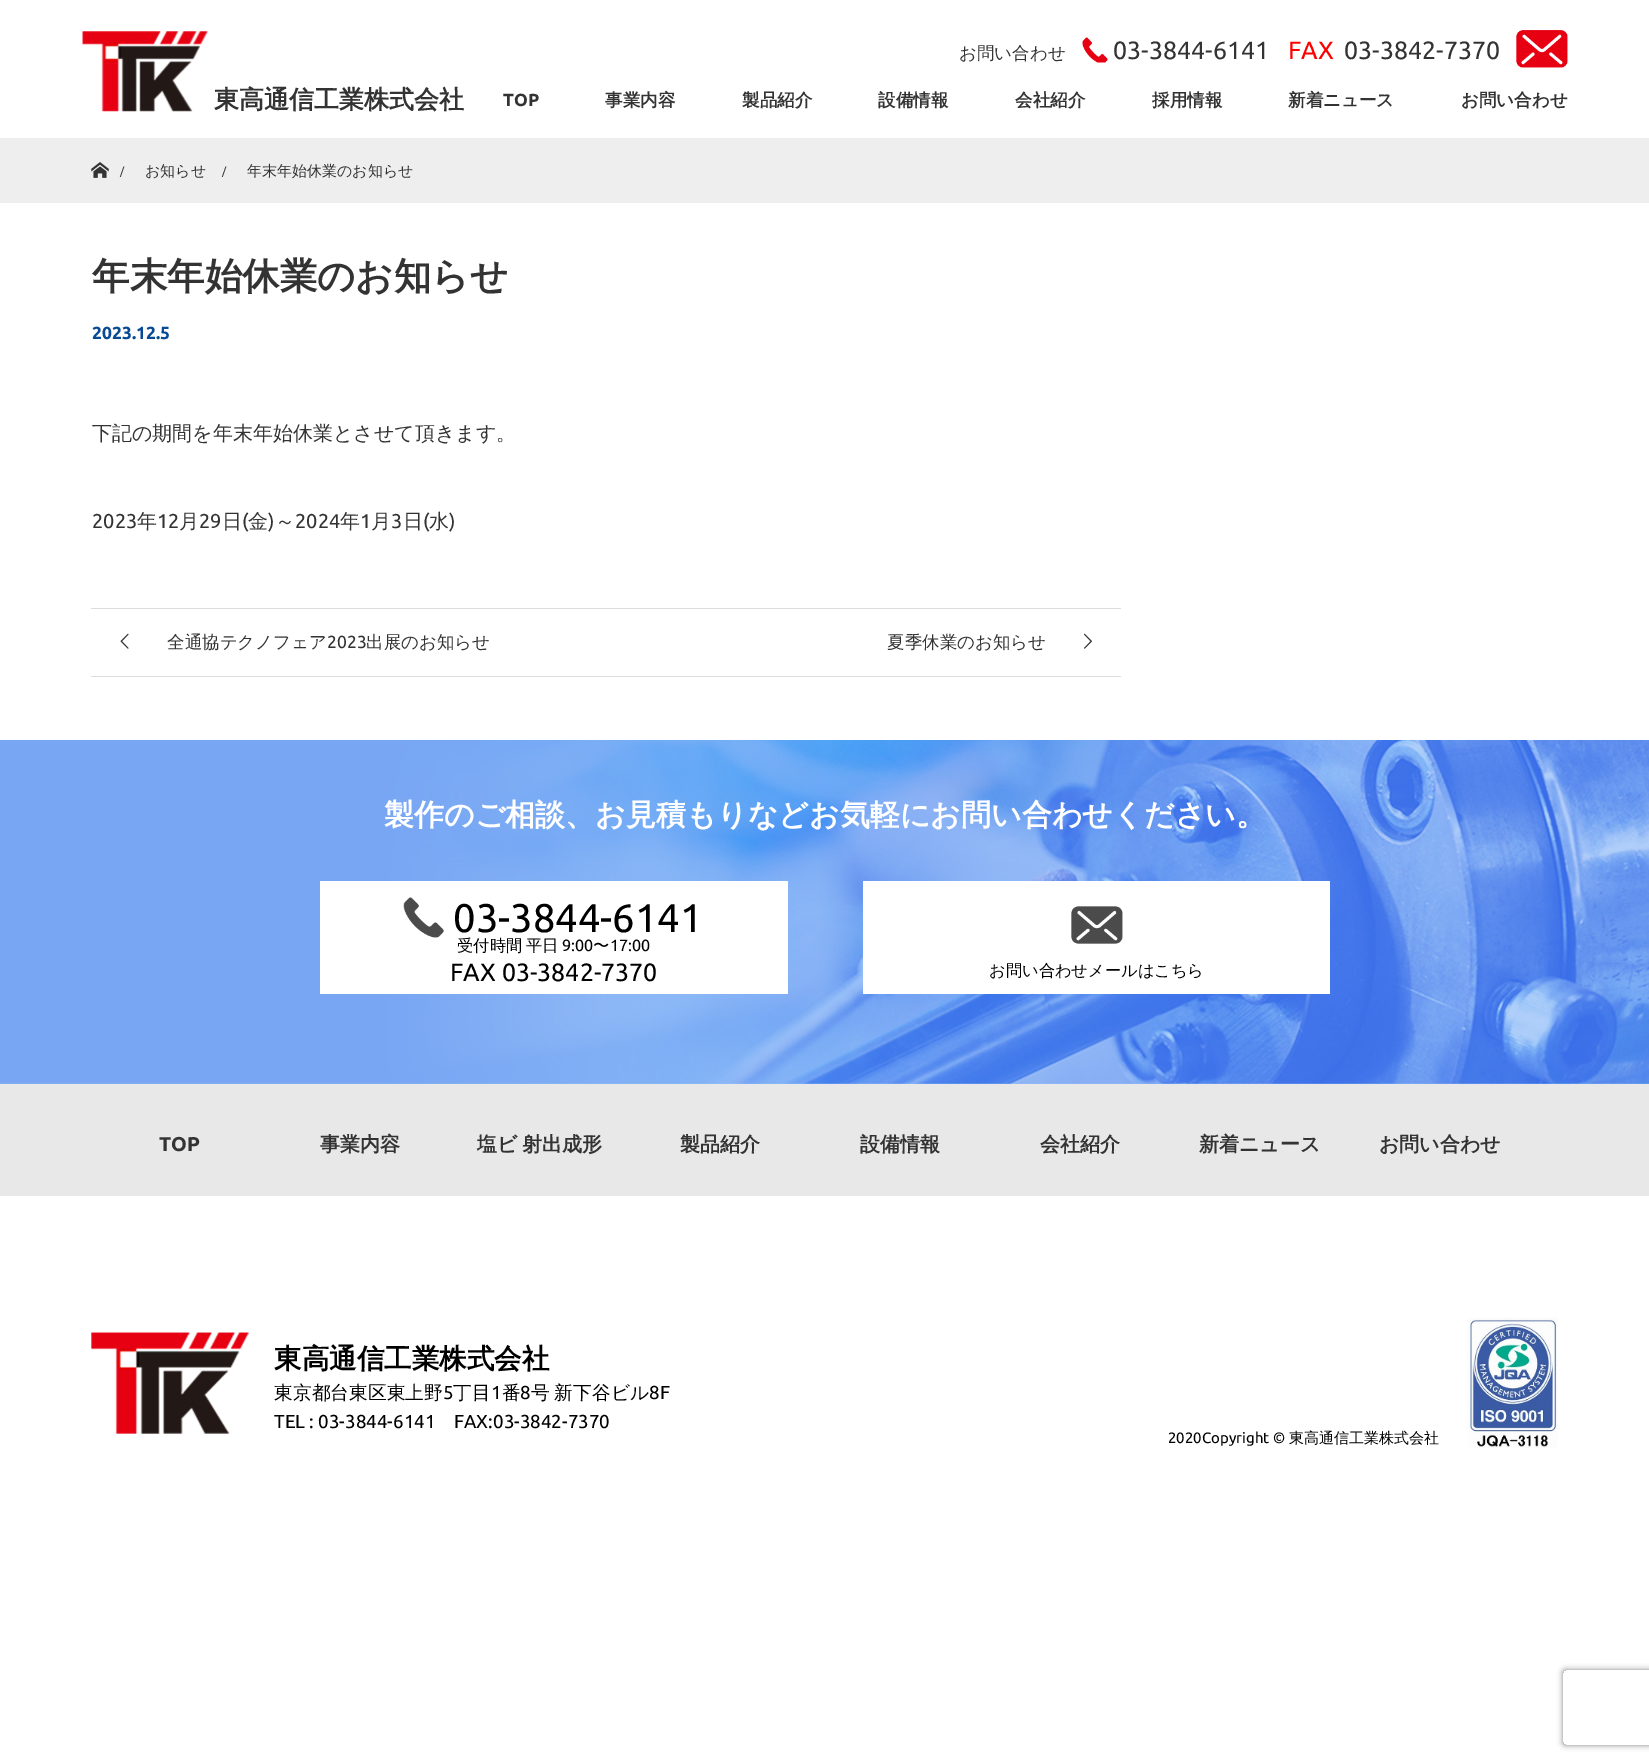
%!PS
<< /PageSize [1649 1762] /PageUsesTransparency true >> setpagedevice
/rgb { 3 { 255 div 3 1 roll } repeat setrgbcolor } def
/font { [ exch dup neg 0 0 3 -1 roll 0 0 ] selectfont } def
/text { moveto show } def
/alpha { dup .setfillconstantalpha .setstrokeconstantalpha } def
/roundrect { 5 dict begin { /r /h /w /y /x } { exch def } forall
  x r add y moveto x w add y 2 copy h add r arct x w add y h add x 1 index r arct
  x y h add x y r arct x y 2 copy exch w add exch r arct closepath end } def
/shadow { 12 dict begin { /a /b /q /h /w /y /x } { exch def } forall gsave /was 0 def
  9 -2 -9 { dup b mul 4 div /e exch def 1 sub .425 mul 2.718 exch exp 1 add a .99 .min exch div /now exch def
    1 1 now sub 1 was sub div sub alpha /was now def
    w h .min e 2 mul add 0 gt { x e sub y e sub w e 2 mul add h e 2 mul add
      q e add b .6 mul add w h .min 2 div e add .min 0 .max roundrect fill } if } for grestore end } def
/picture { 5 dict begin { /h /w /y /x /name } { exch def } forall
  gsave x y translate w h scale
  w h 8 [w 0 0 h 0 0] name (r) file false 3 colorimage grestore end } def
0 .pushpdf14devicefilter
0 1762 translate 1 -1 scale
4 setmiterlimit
255 255 255 rgb
0 0 1649 1762 rectfill
(img_01.rgb) 82 31 126 81 picture
(img_02.rgb) 1082 37 26 26 picture
(img_03.rgb) 1516 30 52 38 picture
238 238 238 rgb
0 138 1649 65 rectfill
(img_04.rgb) 91 162 18 16 picture
221 221 221 rgb
91 608 1030 1 rectfill
91 676 1030 1 rectfill
(img_05.rgb) 120 633 9 16 picture
(img_06.rgb) 1084 633 8 16 picture
(img_07.rgb) 0 740 1649 344 picture
255 255 255 rgb
320 881 468 113 rectfill
(img_08.rgb) 403 897 41 41 picture
863 881 467 113 rectfill
(img_09.rgb) 1071 906 52 38 picture
232 232 232 rgb
0 1084 1649 112 rectfill
(img_10.rgb) 91 1332 158 102 picture
(img_11.rgb) 1467 1317 91 131 picture
gsave
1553 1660 moveto 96 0 rlineto 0 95 rlineto -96 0 rlineto closepath 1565.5 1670 moveto 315 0 rlineto 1.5 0 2.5 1 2.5 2.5 rcurveto 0 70 rlineto 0 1.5 -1 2.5 -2.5 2.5 rcurveto -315 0 rlineto -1.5 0 -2.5 -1 -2.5 -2.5 rcurveto 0 -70 rlineto 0 -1.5 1 -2.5 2.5 -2.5 rcurveto closepath eoclip newpath
128 128 128 rgb
1563 1670 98 75 2.5 3 1 shadow
grestore
/WenQuanYiZenHei-Bold 25 font
51 51 51 rgb
(東高通信工業株式会社) 214 108 text
/WenQuanYiZenHei-Medium 17.5 font
(お問い合わせ) 959 59 text
/Ubuntu-Regular 25 font
(03-3844-6141) 1113 59 text
255 0 0 rgb
(FAX) 1288 59 text
51 51 51 rgb
(03-3842-7370) 1344 59 text
/Ubuntu-Bold 17.5 font
(TOP) 503 106 text
/WenQuanYiZenHei-Bold 17.5 font
(事業内容) 605 106 text
(製品紹介) 742 106 text
(設備情報) 878 106 text
(会社紹介) 1015 106 text
(採用情報) 1152 106 text
(新着ニュース) 1288 106 text
(お問い合わせ) 1461 106 text
/Ubuntu-Regular 11 font
(/) 120 175 text
/WenQuanYiZenHei-Medium 15 font
(お知らせ) 145 176 text
/Ubuntu-Regular 11 font
(/) 222 175 text
/WenQuanYiZenHei-Medium 15 font
(年末年始休業のお知らせ) 247 176 text
/WenQuanYiZenHei-Bold 37.5 font
(年末年始休業のお知らせ) 92 289 text
/Ubuntu-Bold 17.5 font
8 74 147 rgb
(2023.12.5) 92 339 text
/WenQuanYiZenHei-Medium 20 font
51 51 51 rgb
(下記の期間を年末年始休業とさせて頂きます。) 92 440 text
/Ubuntu-Regular 20 font
(2023) 92 528 text
/WenQuanYiZenHei-Medium 20 font
(年) 137 528 text
/Ubuntu-Regular 20 font
(12) 157 528 text
/WenQuanYiZenHei-Medium 20 font
(月) 179 528 text
/Ubuntu-Regular 20 font
(29) 199 528 text
/WenQuanYiZenHei-Medium 20 font
(日) 222 528 text
/Ubuntu-Regular 20 font
(\() 242 528 text
/WenQuanYiZenHei-Medium 20 font
(金) 248 528 text
/Ubuntu-Regular 20 font
(\)) 268 528 text
/WenQuanYiZenHei-Medium 20 font
(～) 275 528 text
/Ubuntu-Regular 20 font
(2024) 295 528 text
/WenQuanYiZenHei-Medium 20 font
(年) 340 528 text
/Ubuntu-Regular 20 font
(1) 360 528 text
/WenQuanYiZenHei-Medium 20 font
(月) 371 528 text
/Ubuntu-Regular 20 font
(3) 391 528 text
/WenQuanYiZenHei-Medium 20 font
(日) 403 528 text
/Ubuntu-Regular 20 font
(\() 423 528 text
/WenQuanYiZenHei-Medium 20 font
(水) 429 528 text
/Ubuntu-Regular 20 font
(\)) 449 528 text
/WenQuanYiZenHei-Medium 17.5 font
(全通協テクノフェア) 167 648 text
/Ubuntu-Regular 17.5 font
(2023) 327 648 text
/WenQuanYiZenHei-Medium 17.5 font
(出展のお知らせ) 366 648 text
(夏季休業のお知らせ) 887 648 text
/WenQuanYiZenHei-Bold 30 font
255 255 255 rgb
(製作のご相談、お見積もりなどお気軽にお問い合わせください。) 384 825 text
/Ubuntu-Regular 40 font
0 0 0 rgb
(03-3844-6141) 453 932 text
/WenQuanYiZenHei-Medium 16.25 font
457 951 moveto -1 0 32 (受付時間 平日) widthshow
/Ubuntu-Regular 16.25 font
(9:00) 562 951 text
/WenQuanYiZenHei-Medium 16.25 font
(〜) 593 951 text
/Ubuntu-Regular 16.25 font
(17:00) 610 951 text
/Ubuntu-Regular 25 font
(FAX 03-3842-7370) 450 981 text
/WenQuanYiZenHei-Medium 16.25 font
(お問い合わせメールはこちら) 989 976 text
/Ubuntu-Bold 20 font
51 51 51 rgb
(TOP) 159 1151 text
/WenQuanYiZenHei-Bold 20 font
(事業内容) 320 1151 text
477 1151 moveto -1 0 32 (塩ビ 射出成形) widthshow
(製品紹介) 680 1151 text
(設備情報) 860 1151 text
(会社紹介) 1040 1151 text
(新着ニュース) 1199 1151 text
(お問い合わせ) 1379 1151 text
/WenQuanYiZenHei-Bold 27.5 font
0 0 0 rgb
(東高通信工業株式会社) 274 1368 text
/WenQuanYiZenHei-Medium 18.75 font
(東京都台東区東上野) 274 1399 text
/Ubuntu-Regular 18.75 font
(5) 443 1399 text
/WenQuanYiZenHei-Medium 18.75 font
(丁目) 453 1399 text
/Ubuntu-Regular 18.75 font
(1) 491 1399 text
/WenQuanYiZenHei-Medium 18.75 font
(番) 502 1399 text
/Ubuntu-Regular 18.75 font
(8) 520 1399 text
/WenQuanYiZenHei-Medium 18.75 font
531 1399 moveto -1 0 32 (号 新下谷ビル) widthshow
/Ubuntu-Regular 18.75 font
(8F) 649 1399 text
(TEL : 03-3844-6141) 274 1428 text
(FAX:03-3842-7370) 454 1428 text
/Ubuntu-Regular 15 font
(2020Copyright ©) 1168 1443 text
/WenQuanYiZenHei-Medium 15 font
(東高通信工業株式会社) 1289 1443 text
.poppdf14devicefilter showpage
